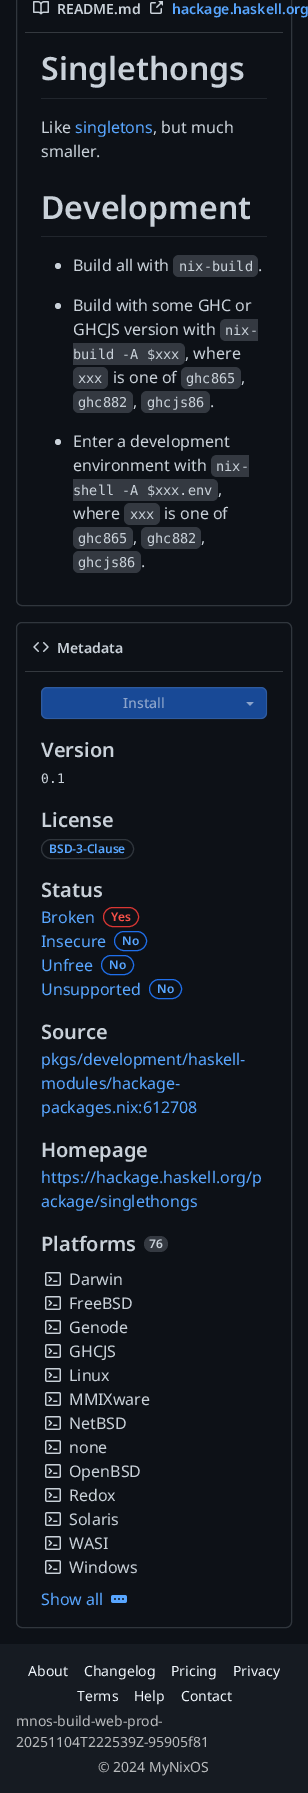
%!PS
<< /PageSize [308 1793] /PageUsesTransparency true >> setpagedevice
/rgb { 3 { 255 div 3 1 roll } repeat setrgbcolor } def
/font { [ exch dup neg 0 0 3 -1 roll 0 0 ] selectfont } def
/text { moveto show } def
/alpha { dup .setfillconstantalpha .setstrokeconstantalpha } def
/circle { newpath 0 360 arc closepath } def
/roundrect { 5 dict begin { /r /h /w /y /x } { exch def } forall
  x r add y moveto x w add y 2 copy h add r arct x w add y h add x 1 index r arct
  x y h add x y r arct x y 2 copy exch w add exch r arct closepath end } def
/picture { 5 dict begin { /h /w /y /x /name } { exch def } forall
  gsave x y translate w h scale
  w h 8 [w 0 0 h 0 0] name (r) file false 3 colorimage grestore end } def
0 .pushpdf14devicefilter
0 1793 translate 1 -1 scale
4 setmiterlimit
13 17 23 rgb
0 0 308 1793 rectfill
48 54 61 rgb
16.5 -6.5 275 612 5.5 roundrect stroke
(img_01.rgb) 33 1 16 14 picture
(img_02.rgb) 150 1 13 13 picture
52 57 63 rgb
25 32 258 1 rectfill
33 38 45 rgb
41 98 226 1 rectfill
41 236 226 1 rectfill
201 209 217 rgb
58 266 3 circle fill
52 57 65 rgb
173 255 85 22 6 roundrect fill
201 209 217 rgb
58 306 3 circle fill
52 57 65 rgb
226 319 moveto 32 0 rlineto 0 22 rlineto -32 0 rlineto -3.5 0 -6 -2.5 -6 -6 rcurveto 0 -10 rlineto 0 -3.5 2.5 -6 6 -6 rcurveto closepath fill
73 343 moveto 106 0 rlineto 3.5 0 6 2.5 6 6 rcurveto 0 10 rlineto 0 3.5 -2.5 6 -6 6 rcurveto -106 0 rlineto closepath fill
73 367 35 22 6 roundrect fill
181 367 60 22 6 roundrect fill
73 391 60 22 6 roundrect fill
141 391 69 22 6 roundrect fill
201 209 217 rgb
58 442 3 circle fill
52 57 65 rgb
217 455 moveto 32 0 rlineto 0 22 rlineto -32 0 rlineto -3.5 0 -6 -2.5 -6 -6 rcurveto 0 -10 rlineto 0 -3.5 2.5 -6 6 -6 rcurveto closepath fill
73 479 moveto 139 0 rlineto 3.5 0 6 2.5 6 6 rcurveto 0 10 rlineto 0 3.5 -2.5 6 -6 6 rcurveto -139 0 rlineto closepath fill
124 503 36 22 6 roundrect fill
73 527 60 22 6 roundrect fill
141 527 60 22 6 roundrect fill
73 551 68 22 6 roundrect fill
48 54 61 rgb
16.5 622.5 275 1005 5.5 roundrect stroke
(img_03.rgb) 33 642 16 10 picture
52 57 63 rgb
25 671 258 1 rectfill
24 73 150 rgb
41 687 226 32 6 roundrect fill
0.1 alpha
240 246 252 rgb
41.5 687.5 225 31 5.5 roundrect stroke
1 alpha
(img_04.rgb) 246 702 8 4 picture
48 54 61 rgb
41.5 839.5 92 19 9.5 roundrect stroke
218 54 51 rgb
103.5 907.5 35 19 9.5 roundrect stroke
31 111 235 rgb
114.5 931.5 32 19 9.5 roundrect stroke
101.5 955.5 32 19 9.5 roundrect stroke
149.5 979.5 32 19 9.5 roundrect stroke
52 57 65 rgb
144 1236 24 16 8 roundrect fill
(img_05.rgb) 45 1272 16 14 picture
(img_05.rgb) 45 1296 16 14 picture
(img_05.rgb) 45 1320 16 14 picture
(img_05.rgb) 45 1344 16 14 picture
(img_05.rgb) 45 1368 16 14 picture
(img_05.rgb) 45 1392 16 14 picture
(img_05.rgb) 45 1416 16 14 picture
(img_05.rgb) 45 1440 16 14 picture
(img_05.rgb) 45 1464 16 14 picture
(img_05.rgb) 45 1488 16 14 picture
(img_05.rgb) 45 1512 16 14 picture
(img_05.rgb) 45 1536 16 14 picture
(img_05.rgb) 45 1560 16 14 picture
(img_06.rgb) 111 1595 16 8 picture
22 27 34 rgb
0 1644 308 149 rectfill
/NotoSans-SemiBold 14 font
201 209 217 rgb
(README.md) 57 14 text
88 166 255 rgb
(hackage.haskell.org) 172 14 text
/NotoSans-SemiBold 32 font
201 209 217 rgb
(Singlethongs) 41 80 text
/NotoSans-Regular 16 font
(Like) 41 133 text
88 166 255 rgb
(singletons) 75 133 text
201 209 217 rgb
(, but much) 153 133 text
(smaller.) 41 157 text
/NotoSans-SemiBold 32 font
(Development) 41 219 text
/NotoSans-Regular 16 font
(Build all with) 73 271 text
/DejaVuSansMono-Regular 13.6 font
(nix-build) 179 271 text
/NotoSans-Regular 16 font
(.) 258 271 text
(Build with some GHC or) 73 311 text
(GHCJS version with) 73 335 text
/DejaVuSansMono-Regular 13.6 font
(nix-) 225 335 text
(build -A $xxx) 73 359 text
/NotoSans-Regular 16 font
(, where) 185 359 text
/DejaVuSansMono-Regular 13.6 font
(xxx) 78 383 text
/NotoSans-Regular 16 font
(is one of) 113 383 text
/DejaVuSansMono-Regular 13.6 font
(ghc865) 186 383 text
/NotoSans-Regular 16 font
(,) 241 383 text
/DejaVuSansMono-Regular 13.6 font
(ghc882) 78 407 text
/NotoSans-Regular 16 font
(,) 133 407 text
/DejaVuSansMono-Regular 13.6 font
(ghcjs86) 147 407 text
/NotoSans-Regular 16 font
(.) 210 407 text
(Enter a development) 73 447 text
(environment with) 73 471 text
/DejaVuSansMono-Regular 13.6 font
(nix-) 216 471 text
(shell -A $xxx.env) 73 495 text
/NotoSans-Regular 16 font
(,) 218 495 text
(where) 73 519 text
/DejaVuSansMono-Regular 13.6 font
(xxx) 130 519 text
/NotoSans-Regular 16 font
(is one of) 164 519 text
/DejaVuSansMono-Regular 13.6 font
(ghc865) 78 543 text
/NotoSans-Regular 16 font
(,) 133 543 text
/DejaVuSansMono-Regular 13.6 font
(ghc882) 147 543 text
/NotoSans-Regular 16 font
(,) 201 543 text
/DejaVuSansMono-Regular 13.6 font
(ghcjs86) 78 567 text
/NotoSans-Regular 16 font
(.) 141 567 text
/NotoSans-SemiBold 14 font
(Metadata) 57 653 text
/NotoSans-Medium 14 font
140 164 203 rgb
(Install) 123 708 text
/NotoSans-SemiBold 20 font
201 209 217 rgb
(Version) 41 757 text
/DejaVuSansMono-Regular 13 font
(0.1) 41 783 text
/NotoSans-SemiBold 20 font
(License) 41 827 text
/NotoSans-SemiBold 12 font
88 166 255 rgb
(BSD-3-Clause) 49 853 text
/NotoSans-SemiBold 20 font
201 209 217 rgb
(Status) 41 897 text
/NotoSans-Regular 16 font
88 166 255 rgb
(Broken) 41 923 text
/NotoSans-SemiBold 12 font
248 81 73 rgb
(Yes) 111 921 text
/NotoSans-Regular 16 font
88 166 255 rgb
(Insecure) 41 947 text
/NotoSans-SemiBold 12 font
(No) 122 945 text
/NotoSans-Regular 16 font
(Unfree) 41 971 text
/NotoSans-SemiBold 12 font
(No) 109 969 text
/NotoSans-Regular 16 font
(Unsupported) 41 995 text
/NotoSans-SemiBold 12 font
(No) 157 993 text
/NotoSans-SemiBold 20 font
201 209 217 rgb
(Source) 41 1039 text
/NotoSans-Regular 16 font
88 166 255 rgb
(pkgs/development/haskell-) 41 1065 text
(modules/hackage-) 41 1089 text
(packages.nix:612708) 41 1113 text
/NotoSans-SemiBold 20 font
201 209 217 rgb
(Homepage) 41 1157 text
/NotoSans-Regular 16 font
88 166 255 rgb
(https://hackage.haskell.org/p) 41 1183 text
(ackage/singlethongs) 41 1207 text
/NotoSans-SemiBold 20 font
201 209 217 rgb
(Platforms) 41 1251 text
/NotoSans-SemiBold 12 font
(76) 149 1248 text
/NotoSans-Regular 16 font
(Darwin) 69 1285 text
(FreeBSD) 69 1309 text
(Genode) 69 1333 text
(GHCJS) 69 1357 text
(Linux) 69 1381 text
(MMIXware) 69 1405 text
(NetBSD) 69 1429 text
(none) 69 1453 text
(OpenBSD) 69 1477 text
(Redox) 69 1501 text
(Solaris) 69 1525 text
(WASI) 69 1549 text
(Windows) 69 1573 text
88 166 255 rgb
(Show all) 41 1605 text
/NotoSans-Regular 14 font
240 246 252 rgb
(About) 28 1676 text
(Changelog) 84 1676 text
(Pricing) 171 1676 text
(Privacy) 233 1676 text
(Terms) 77 1701 text
(Help) 134 1701 text
(Contact) 181 1701 text
185 187 189 rgb
(mnos-build-web-prod-) 16 1726 text
(20251104T222539Z-95905f81) 16 1747 text
(© 2024 MyNixOS) 98 1772 text
.poppdf14devicefilter showpage
